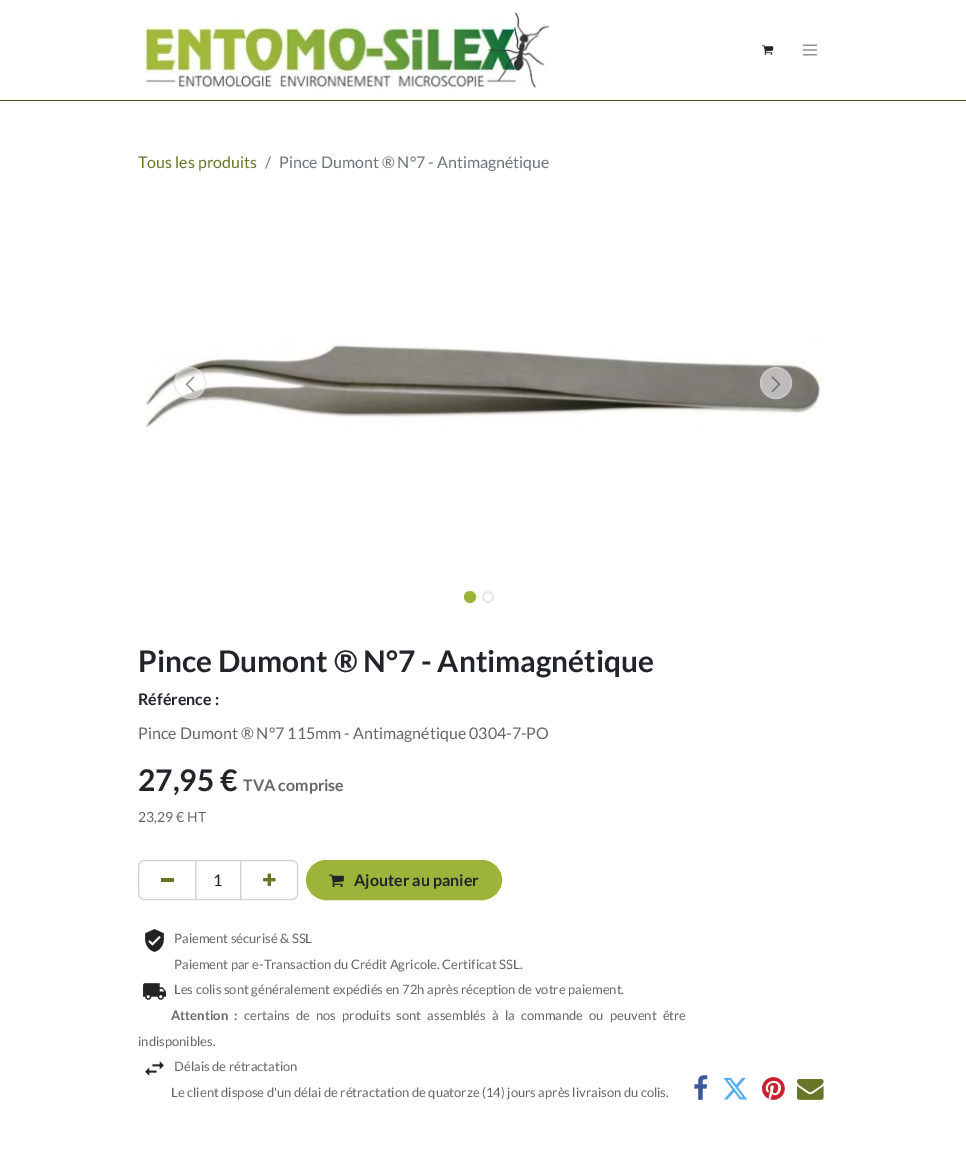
%!PS
<< /PageSize [966 1149] /PageUsesTransparency true >> setpagedevice
/rgb { 3 { 255 div 3 1 roll } repeat setrgbcolor } def
/font { [ exch dup neg 0 0 3 -1 roll 0 0 ] selectfont } def
/text { moveto show } def
/alpha { dup .setfillconstantalpha .setstrokeconstantalpha } def
/circle { newpath 0 360 arc closepath } def
/roundrect { 5 dict begin { /r /h /w /y /x } { exch def } forall
  x r add y moveto x w add y 2 copy h add r arct x w add y h add x 1 index r arct
  x y h add x y r arct x y 2 copy exch w add exch r arct closepath end } def
/picture { 5 dict begin { /h /w /y /x /name } { exch def } forall
  gsave x y translate w h scale
  w h 8 [w 0 0 h 0 0] name (r) file false 3 colorimage grestore end } def
0 .pushpdf14devicefilter
0 1149 translate 1 -1 scale
4 setmiterlimit
255 255 255 rgb
0 0 966 1149 rectfill
72 84 27 rgb
0 100 966 1 rectfill
(img_01.rgb) 144 12 406 77 picture
(img_02.rgb) 762 45 12 10 picture
(img_03.rgb) 802 44 16 12 picture
(img_04.rgb) 145 337 677 93 picture
0.5 alpha
255 255 255 rgb
190 383 16 circle fill
206 212 218 rgb
190 383 15.5 circle stroke
1 alpha
(img_05.rgb) 185 376 10 17 picture
0.5 alpha
255 255 255 rgb
776 383 16 circle fill
206 212 218 rgb
776 383 15.5 circle stroke
1 alpha
(img_06.rgb) 771 376 10 17 picture
156 180 58 rgb
470 597 5 circle gsave fill grestore
2 setlinewidth
stroke
231 234 237 rgb
488 597 5 circle stroke
206 212 218 rgb
1 setlinewidth
195.5 860.5 45 39 rectstroke
144 860.5 moveto 51.5 0 rlineto 0 39 rlineto -51.5 0 rlineto -3 0 -5.5 -2.5 -5.5 -5.5 rcurveto 0 -28 rlineto 0 -3 2.5 -5.5 5.5 -5.5 rcurveto closepath stroke
103 118 38 rgb
161 878 13 4 rectfill
206 212 218 rgb
240.5 860.5 moveto 51.5 0 rlineto 3 0 5.5 2.5 5.5 5.5 rcurveto 0 28 rlineto 0 3 -2.5 5.5 -5.5 5.5 rcurveto -51.5 0 rlineto closepath stroke
(img_07.rgb) 263 873 13 13 picture
156 180 58 rgb
306.5 860.5 195 39 19.5 roundrect gsave fill grestore
stroke
(img_08.rgb) 329 874 15 14 picture
(img_09.rgb) 145 929 19 23 picture
(img_10.rgb) 143 983 23 17 picture
(img_11.rgb) 145 1061 19 15 picture
(img_12.rgb) 694 1075 14 25 picture
(img_13.rgb) 723 1077 24 23 picture
(img_14.rgb) 762 1077 23 23 picture
(img_15.rgb) 797 1079 27 21 picture
/Lato-Regular 16 font
103 118 38 rgb
(Tous les produits) 138 168 text
108 117 125 rgb
(/) 265 168 text
(Pince Dumont ® N°7 - Antimagnétique) 279 168 text
/Lato-Bold 29.9 font
33 37 41 rgb
(Pince Dumont ® N°7 - Antimagnétique) 138 672 text
/Lato-Bold 16 font
(Référence :) 138 705 text
/Lato-Regular 16 font
100 102 105 rgb
(Pince Dumont ® N°7 115mm - Antimagnétique 0304-7-PO) 138 739 text
/Lato-Bold 29.9 font
33 37 41 rgb
(27,95 €) 138 791 text
/Lato-Bold 16 font
100 102 105 rgb
(TVA comprise) 243 791 text
/Lato-Regular 14 font
(23,29 € HT) 138 822 text
/Lato-Regular 16 font
33 37 41 rgb
(1) 213 886 text
/Lato-Bold 16 font
(Ajouter au panier) 354 886 text
/Lato-Regular 13 font
100 102 105 rgb
(Paiement sécurisé & SSL) 174 943 text
(Paiement par e-Transaction du Crédit Agricole. Certificat SSL.) 174 969 text
(Les colis sont généralement expédiés en 72h après réception de votre paiement.) 174 994 text
/Lato-Bold 13 font
171 1020 moveto 3.6 0 32 (Attention :) widthshow
/Lato-Regular 13 font
244 1020 moveto 3.6 0 32 (certains de nos produits sont assemblés à la commande ou peuvent être) widthshow
(indisponibles.) 138 1046 text
(Délais de rétractation) 174 1071 text
(Le client dispose d'un délai de rétractation de quatorze \(14\) jours après livraison du colis.) 171 1097 text
.poppdf14devicefilter showpage
